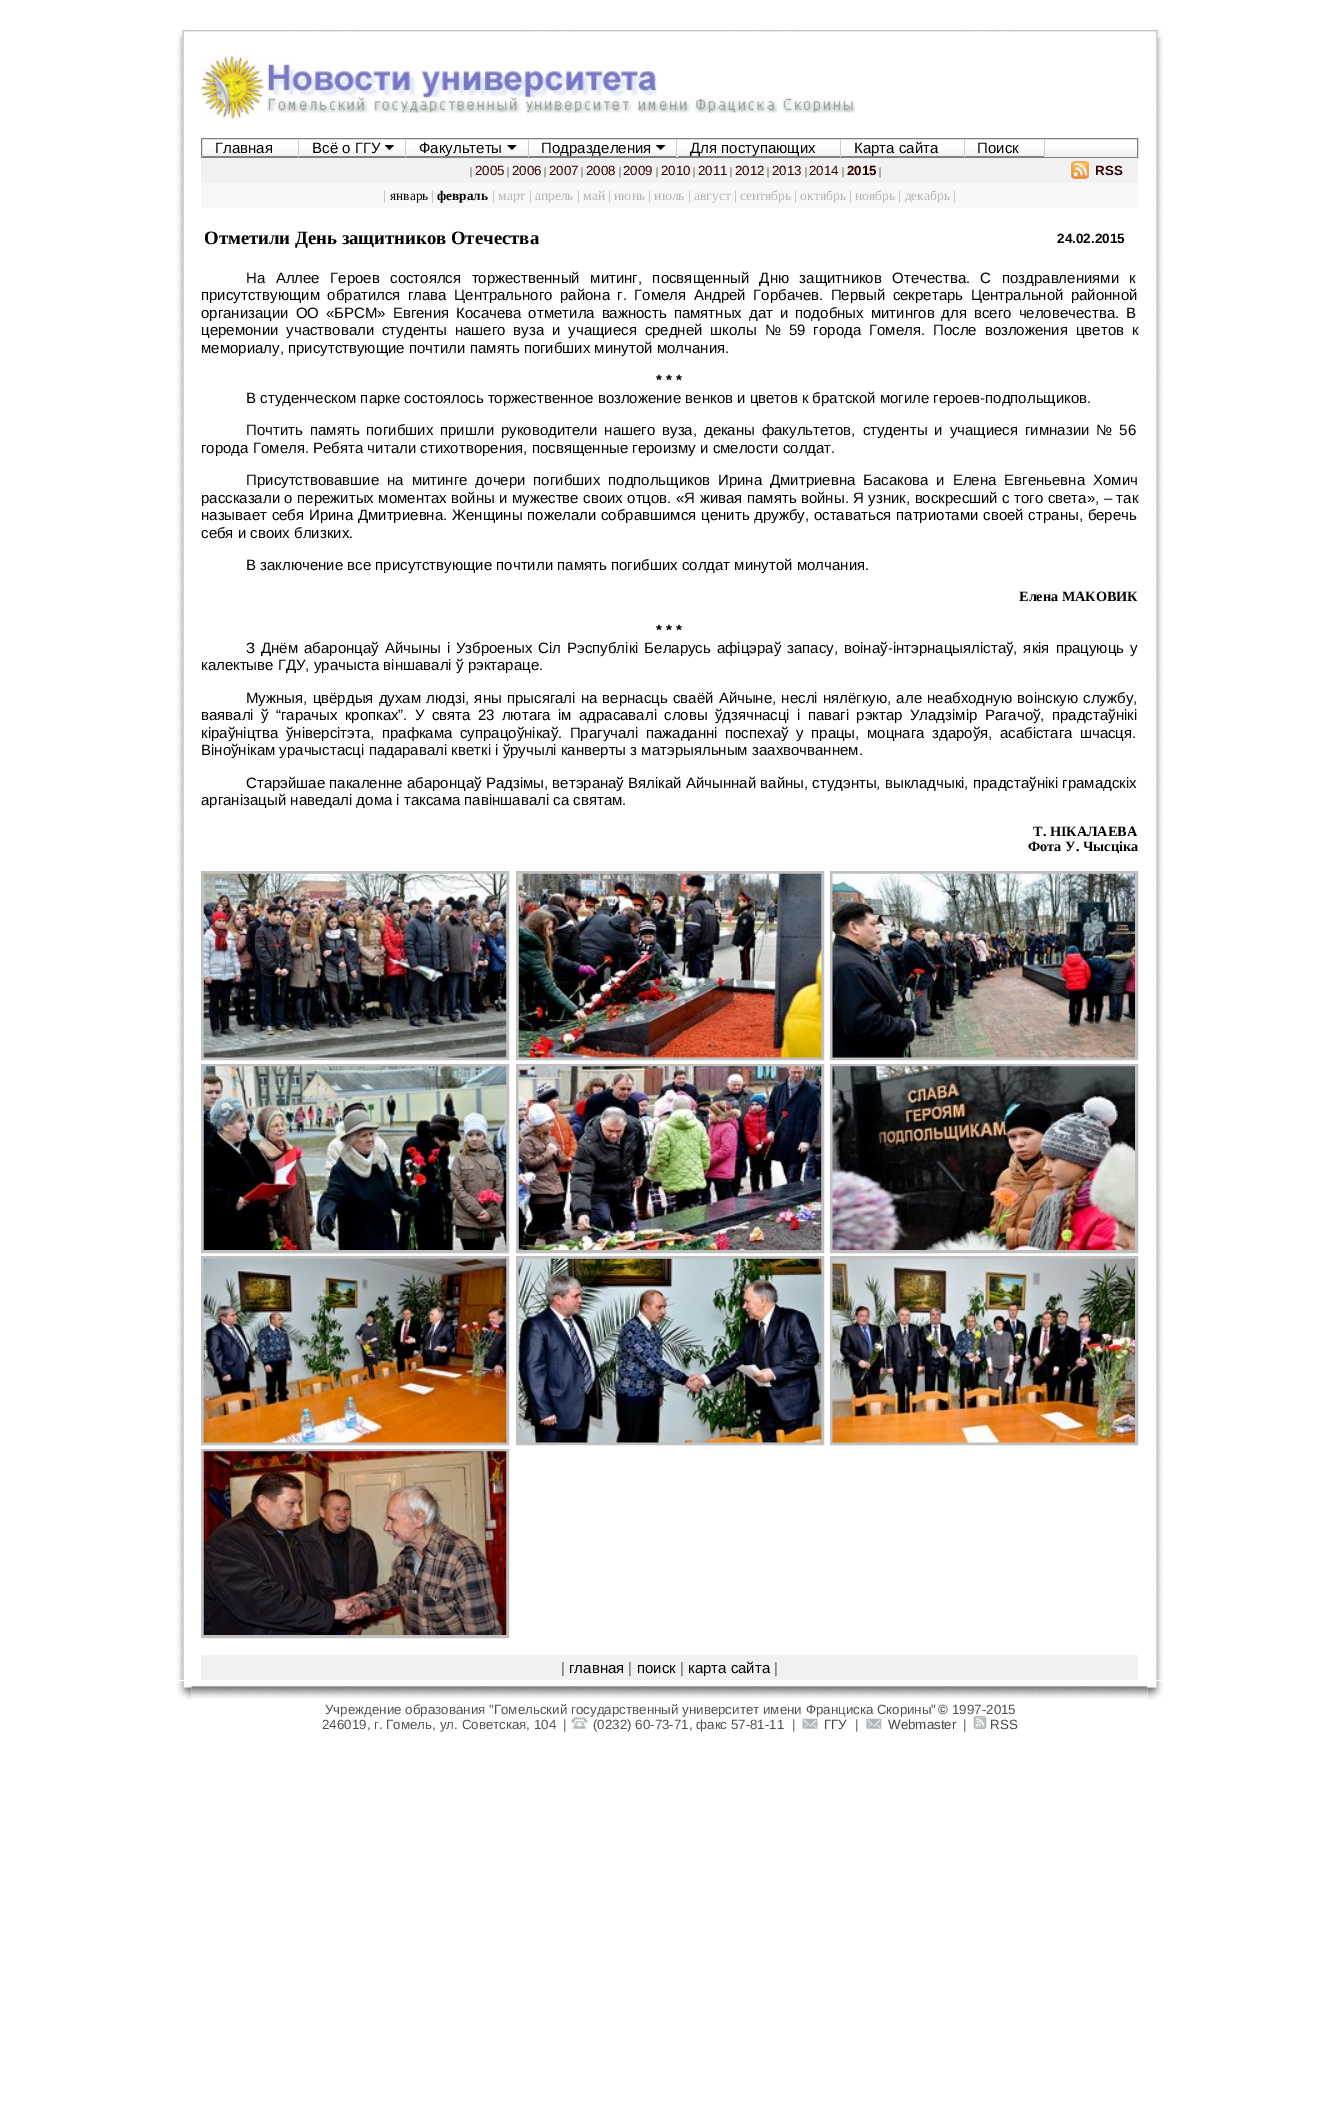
%!PS
<< /PageSize [1339 2106] >> setpagedevice
/rgb { 3 { 255 div 3 1 roll } repeat setrgbcolor } def
/font { [ exch dup neg 0 0 3 -1 roll 0 0 ] selectfont } def
/text { moveto show } def
/picture { 5 dict begin { /h /w /y /x /name } { exch def } forall
  gsave x y translate w h scale
  w h 8 [w 0 0 h 0 0] name (r) file false 3 colorimage grestore end } def
0 2106 translate 1 -1 scale
4 setmiterlimit
255 255 255 rgb
0 0 1339 2106 rectfill
(img_01.rgb) 178 30 14 8 picture
(img_02.rgb) 191 30 957 2 picture
(img_23.rgb) 1156 37 8 1643 picture
(img_03.rgb) 1147 30 16 8 picture
(img_04.rgb) 176 37 8 1643 picture
(img_05.rgb) 201 56 63 63 picture
(img_06.rgb) 267 63 390 35 picture
(img_07.rgb) 267 97 588 16 picture
(img_08.rgb) 202 149 935 8 picture
128 128 128 rgb
201.5 138.5 936 19 rectstroke
204 204 204 rgb
298 139 1 17 rectfill
128 128 128 rgb
203 156 95 1 rectfill
204 204 204 rgb
405 139 1 17 rectfill
(img_09.rgb) 385 145 9 5 picture
128 128 128 rgb
299 156 106 1 rectfill
204 204 204 rgb
528 139 1 17 rectfill
(img_10.rgb) 507 145 10 5 picture
128 128 128 rgb
406 156 122 1 rectfill
204 204 204 rgb
676 139 1 17 rectfill
(img_11.rgb) 656 145 10 5 picture
128 128 128 rgb
529 156 147 1 rectfill
204 204 204 rgb
840 139 1 17 rectfill
128 128 128 rgb
678 156 162 1 rectfill
204 204 204 rgb
964 139 1 17 rectfill
128 128 128 rgb
841 156 123 1 rectfill
204 204 204 rgb
1044 139 1 17 rectfill
128 128 128 rgb
965 156 79 1 rectfill
241 241 241 rgb
201 158 937 25 rectfill
(img_12.rgb) 1071 161 18 18 picture
248 248 248 rgb
201 183 937 25 rectfill
192 192 192 rgb
3 setlinewidth
202.5 872.5 305 186 rectstroke
517.5 872.5 305 186 rectstroke
831.5 872.5 305 186 rectstroke
(img_13.rgb) 203 873 304 185 picture
(img_14.rgb) 518 873 304 185 picture
(img_15.rgb) 832 873 303 185 picture
202.5 1065.5 305 186 rectstroke
517.5 1065.5 305 186 rectstroke
831.5 1065.5 305 186 rectstroke
(img_16.rgb) 203 1066 304 184 picture
(img_17.rgb) 518 1066 304 184 picture
(img_18.rgb) 832 1066 303 184 picture
202.5 1257.5 305 186 rectstroke
517.5 1257.5 305 186 rectstroke
831.5 1257.5 305 186 rectstroke
(img_19.rgb) 203 1258 304 185 picture
(img_20.rgb) 518 1258 304 185 picture
(img_21.rgb) 832 1258 303 185 picture
202.5 1450.5 305 186 rectstroke
(img_22.rgb) 203 1451 304 184 picture
241 241 241 rgb
201 1655 937 25 rectfill
(img_25.rgb) 191 1686 957 13 picture
(img_24.rgb) 176 1681 16 19 picture
(img_26.rgb) 1147 1681 17 19 picture
(img_27.rgb) 571 1717 17 12 picture
(img_28.rgb) 802 1718 16 11 picture
(img_29.rgb) 866 1718 16 11 picture
(img_30.rgb) 973 1716 14 13 picture
/LiberationSans-Regular 15 font
0 0 0 rgb
(Главная) 215 153 text
(Всё о ГГУ) 312 153 text
(Факультеты) 419 153 text
(Подразделения) 541 153 text
(Для поступающих) 690 153 text
(Карта сайта) 854 153 text
(Поиск) 977 153 text
/LiberationSerif-Regular 11 font
(|) 470 175 text
/LiberationSans-Regular 13.35 font
51 0 0 rgb
(2005) 475 175 text
/LiberationSerif-Regular 11 font
0 0 0 rgb
(|) 507 175 text
/LiberationSans-Regular 13.35 font
51 0 0 rgb
(2006) 512 175 text
/LiberationSerif-Regular 11 font
0 0 0 rgb
(|) 544 175 text
/LiberationSans-Regular 13.35 font
51 0 0 rgb
(2007) 549 175 text
/LiberationSerif-Regular 11 font
0 0 0 rgb
(|) 581 175 text
/LiberationSans-Regular 13.35 font
51 0 0 rgb
(2008) 586 175 text
/LiberationSerif-Regular 11 font
0 0 0 rgb
(|) 619 175 text
/LiberationSans-Regular 13.35 font
51 0 0 rgb
(2009) 623 175 text
/LiberationSerif-Regular 11 font
0 0 0 rgb
(|) 656 175 text
/LiberationSans-Regular 13.35 font
51 0 0 rgb
(2010) 661 175 text
/LiberationSerif-Regular 11 font
0 0 0 rgb
(|) 693 175 text
/LiberationSans-Regular 13.35 font
51 0 0 rgb
(2011) 698 175 text
/LiberationSerif-Regular 11 font
0 0 0 rgb
(|) 730 175 text
/LiberationSans-Regular 13.35 font
51 0 0 rgb
(2012) 735 175 text
/LiberationSerif-Regular 11 font
0 0 0 rgb
(|) 767 175 text
/LiberationSans-Regular 13.35 font
51 0 0 rgb
(2013) 772 175 text
/LiberationSerif-Regular 11 font
0 0 0 rgb
(|) 805 175 text
/LiberationSans-Regular 13.35 font
51 0 0 rgb
(2014) 809 175 text
/LiberationSerif-Regular 11 font
0 0 0 rgb
(|) 842 175 text
/LiberationSans-Bold 13.35 font
51 0 0 rgb
(2015) 847 175 text
/LiberationSerif-Regular 11 font
0 0 0 rgb
(|) 879 175 text
/LiberationSans-Bold 13.35 font
51 0 0 rgb
(RSS) 1095 175 text
/LiberationSerif-Regular 13.5 font
182 182 182 rgb
(|) 383 200 text
/LiberationSerif-Regular 13.35 font
0 0 0 rgb
(январь) 390 200 text
/LiberationSerif-Regular 13.5 font
182 182 182 rgb
(|) 431 200 text
/LiberationSerif-Bold 13.35 font
0 0 0 rgb
(февраль) 437 200 text
/LiberationSerif-Regular 13.5 font
182 182 182 rgb
(| март | апрель | май | июнь | июль | август | сентябрь | октябрь | ноябрь | декабрь |) 492 200 text
/LiberationSerif-Bold 18.75 font
0 0 0 rgb
(Отметили День защитников Отечества) 204 244 text
/LiberationSans-Bold 13.5 font
(24.02.2015) 1057 243 text
/LiberationSans-Regular 15 font
246 283 moveto 6.25 0 32 (На Аллее Героев состоялся торжественный митинг, посвященный Дню защитников Отечества. С поздравлениями к) widthshow
201 300 moveto 3.25 0 32 (присутствующим обратился глава Центрального района г. Гомеля Андрей Горбачев. Первый секретарь Центральной районной) widthshow
201 318 moveto 2.75 0 32 (организации ОО «БРСМ» Евгения Косачева отметила важность памятных дат и подобных митингов для всего человечества. В) widthshow
201 335 moveto 3.75 0 32 (церемонии участвовали студенты нашего вуза и учащиеся средней школы № 59 города Гомеля. После возложения цветов к) widthshow
(мемориалу, присутствующие почтили память погибших минутой молчания.) 201 353 text
/LiberationSans-Bold 15 font
(* * *) 656 385 text
/LiberationSans-Regular 15 font
(В студенческом парке состоялось торжественное возложение венков и цветов к братской могиле героев-подпольщиков.) 246 403 text
246 435 moveto 2.75 0 32 (Почтить память погибших пришли руководители нашего вуза, деканы факультетов, студенты и учащиеся гимназии № 56) widthshow
(города Гомеля. Ребята читали стихотворения, посвященные героизму и смелости солдат.) 201 453 text
246 485 moveto 3.75 0 32 (Присутствовавшие на митинге дочери погибших подпольщиков Ирина Дмитриевна Басакова и Елена Евгеньевна Хомич) widthshow
201 503 moveto 0.25 0 32 (рассказали о пережитых моментах войны и мужестве своих отцов. «Я живая память войны. Я узник, воскресший с того света», – так) widthshow
201 520 moveto 0.6 0 32 (называет себя Ирина Дмитриевна. Женщины пожелали собравшимся ценить дружбу, оставаться патриотами своей страны, беречь) widthshow
(себя и своих близких.) 201 538 text
(В заключение все присутствующие почтили память погибших солдат минутой молчания.) 246 570 text
/LiberationSerif-Bold 14.25 font
(Елена МАКОВИК) 1019 601 text
/LiberationSans-Bold 15 font
(* * *) 656 635 text
/LiberationSans-Regular 15 font
246 653 moveto 1.75 0 32 (З Днём абаронцаў Айчыны і Узброеных Сіл Рэспублікі Беларусь афіцэраў запасу, воінаў-інтэрнацыялістаў, якія працуюць у) widthshow
(калектыве ГДУ, урачыста віншавалі ў рэктараце.) 201 670 text
246 703 moveto 1 0 32 (Мужныя, цвёрдыя духам людзі, яны прысягалі на вернасць сваёй Айчыне, неслі нялёгкую, але неабходную воінскую службу,) widthshow
201 720 moveto 3.1 0 32 (ваявалі ў “гарачых кропках”. У свята 23 лютага ім адрасавалі словы ўдзячнасці і павагі рэктар Уладзімір Рагачоў, прадстаўнікі) widthshow
201 738 moveto 3.25 0 32 (кіраўніцтва ўніверсітэта, прафкама супрацоўнікаў. Прагучалі пажаданні поспехаў у працы, моцнага здароўя, асабістага шчасця.) widthshow
(Віноўнікам урачыстасці падаравалі кветкі і ўручылі канверты з матэрыяльным заахвочваннем.) 201 755 text
(Старэйшае пакаленне абаронцаў Радзімы, ветэранаў Вялікай Айчыннай вайны, студэнты, выкладчыкі, прадстаўнікі грамадскіх) 246 788 text
(арганізацый наведалі дома і таксама павіншавалі са святам.) 201 805 text
/LiberationSerif-Bold 14.25 font
(Т. НІКАЛАЕВА) 1033 836 text
(Фота У. Чысціка) 1028 851 text
/LiberationSans-Regular 15 font
102 102 102 rgb
(|) 561 1673 text
0 0 0 rgb
(главная) 569 1673 text
102 102 102 rgb
(|) 628 1673 text
0 0 0 rgb
(поиск) 637 1673 text
102 102 102 rgb
(|) 680 1673 text
0 0 0 rgb
(карта сайта) 688 1673 text
102 102 102 rgb
(|) 774 1673 text
/LiberationSans-Regular 13.35 font
80 80 80 rgb
(Учреждение образования "Гомельский государственный университет имени Франциска Скорины") 325 1714 text
/LiberationSans-Bold 13.35 font
(©) 938 1714 text
/LiberationSans-Regular 13.35 font
(1997-2015) 952 1714 text
(246019, г. Гомель, ул. Советская, 104  |) 322 1729 text
(\(0232\) 60-73-71, факс 57-81-11  |) 593 1729 text
69 69 69 rgb
(ГГУ) 824 1729 text
80 80 80 rgb
(|) 855 1729 text
69 69 69 rgb
(Webmaster) 888 1729 text
80 80 80 rgb
(|) 963 1729 text
69 69 69 rgb
(RSS) 990 1729 text
showpage
